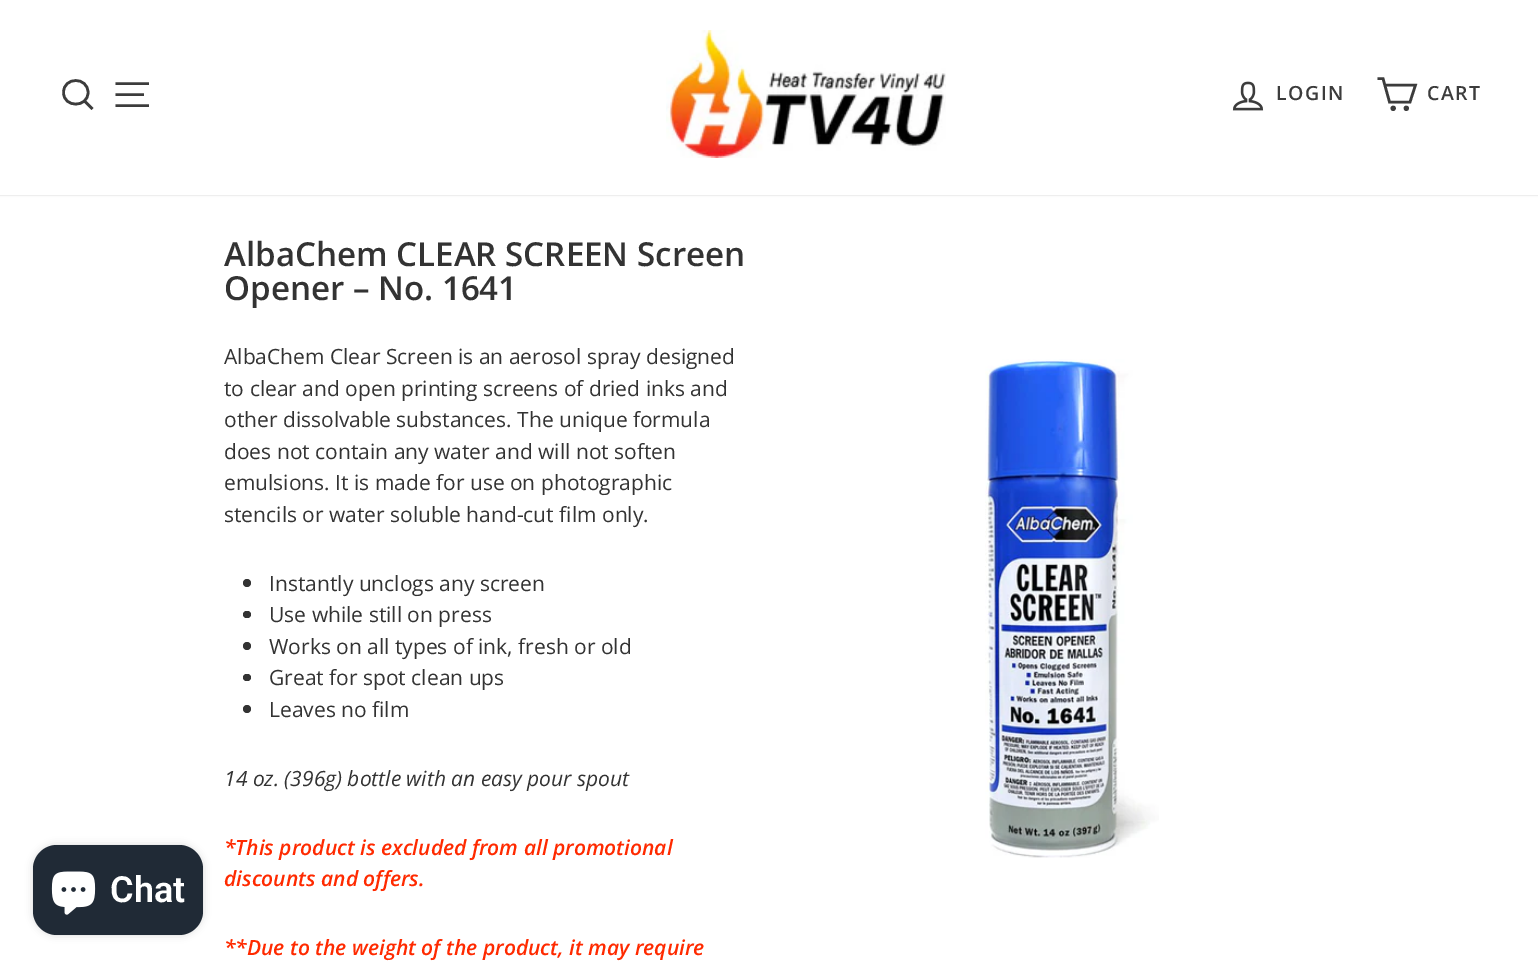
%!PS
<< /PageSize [1538 965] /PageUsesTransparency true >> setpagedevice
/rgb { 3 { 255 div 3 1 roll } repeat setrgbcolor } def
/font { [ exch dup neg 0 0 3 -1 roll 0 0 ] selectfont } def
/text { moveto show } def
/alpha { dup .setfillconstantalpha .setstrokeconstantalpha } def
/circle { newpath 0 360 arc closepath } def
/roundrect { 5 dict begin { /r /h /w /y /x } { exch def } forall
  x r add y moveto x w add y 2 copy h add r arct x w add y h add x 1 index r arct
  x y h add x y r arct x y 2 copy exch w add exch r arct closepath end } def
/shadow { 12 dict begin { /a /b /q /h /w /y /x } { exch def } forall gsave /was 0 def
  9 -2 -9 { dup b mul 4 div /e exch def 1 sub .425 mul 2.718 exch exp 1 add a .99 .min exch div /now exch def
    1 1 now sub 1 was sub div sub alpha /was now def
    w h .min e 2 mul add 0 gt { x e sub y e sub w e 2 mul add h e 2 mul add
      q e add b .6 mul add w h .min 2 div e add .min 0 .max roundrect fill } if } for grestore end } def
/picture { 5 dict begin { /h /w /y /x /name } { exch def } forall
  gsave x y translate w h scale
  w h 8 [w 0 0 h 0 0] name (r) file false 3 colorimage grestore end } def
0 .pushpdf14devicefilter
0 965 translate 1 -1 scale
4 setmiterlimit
255 255 255 rgb
0 0 1538 965 rectfill
0 0 0 rgb
33 845 170 90 24 4 0.15 shadow
32 42 54 rgb
33 845 170 90 24 roundrect fill
(img_01.rgb) 51 871 45 44 picture
0 0 0 rgb
0 0 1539 195 0 1 0.2 shadow
255 255 255 rgb
0 0 1538 195 rectfill
60 60 60 rgb
2.6 setlinewidth
88 92.5 moveto 0 15.5 -24.5 15.5 -24.5 0 rcurveto 0 -16 24.5 -16 24.5 0 rcurveto closepath 92.5 109 moveto -8 -8 rlineto stroke
115.5 83.5 moveto 33.5 0 rlineto 115.5 94.5 moveto 28.5 0 rlineto 115.5 105.5 moveto 33.5 0 rlineto stroke
(img_02.rgb) 666 30 280 128 picture
(img_03.rgb) 1232 81 32 30 picture
1384.5 85 moveto 31 0 rlineto -5.5 17 rlineto -20.5 0 rlineto -6.5 -23.5 rlineto -5.5 0 rlineto stroke
1393.2 108.3 1.3 circle stroke
1406.3 108.3 1.3 circle stroke
51 51 51 rgb
247 583 4 circle fill
243 611 8 7 3.5 roundrect fill
247 646 4 circle fill
243 674 8 7 3.5 roundrect fill
247 709 4 circle fill
(img_04.rgb) 985 359 174 499 picture
/Roboto-SemiBold 36 font
255 255 255 rgb
(Chat) 110 902 text
/OpenSans-SemiBold 19.5 font
60 60 60 rgb
1276 100 moveto 1.5 0 (LOGIN) ashow
1427 100 moveto 1.5 0 (CART) ashow
/OpenSans-SemiBold 33.1 font
51 51 51 rgb
(AlbaChem CLEAR SCREEN Screen) 224 266 text
(Opener – No. 1641) 224 300 text
/OpenSans-Regular 21 font
(AlbaChem Clear Screen is an aerosol spray designed) 224 364 text
(to clear and open printing screens of dried inks and) 224 396 text
(other dissolvable substances. The unique formula) 224 427 text
(does not contain any water and will not soften) 224 459 text
(emulsions. It is made for use on photographic) 224 490 text
(stencils or water soluble hand-cut film only.) 224 522 text
(Instantly unclogs any screen) 269 591 text
(Use while still on press) 269 622 text
(Works on all types of ink, fresh or old) 269 654 text
(Great for spot clean ups) 269 685 text
(Leaves no film) 269 717 text
/OpenSans-Italic 21 font
(14 oz. \(396g\) bottle with an easy pour spout) 224 786 text
/OpenSans-SemiBoldItalic 21 font
255 42 0 rgb
(*This product is excluded from all promotional) 224 855 text
(discounts and offers.) 224 886 text
(**Due to the weight of the product, it may require) 224 955 text
.poppdf14devicefilter showpage
